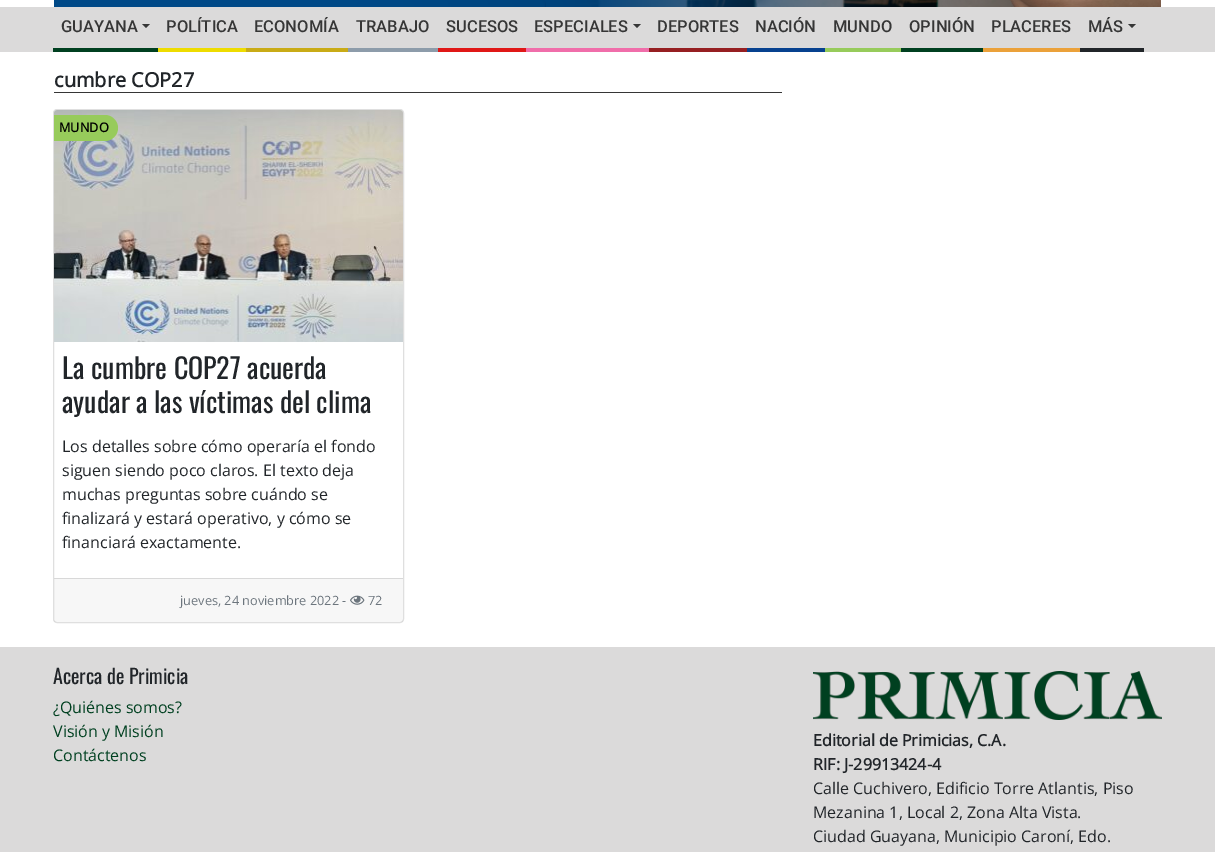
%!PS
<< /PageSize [1215 852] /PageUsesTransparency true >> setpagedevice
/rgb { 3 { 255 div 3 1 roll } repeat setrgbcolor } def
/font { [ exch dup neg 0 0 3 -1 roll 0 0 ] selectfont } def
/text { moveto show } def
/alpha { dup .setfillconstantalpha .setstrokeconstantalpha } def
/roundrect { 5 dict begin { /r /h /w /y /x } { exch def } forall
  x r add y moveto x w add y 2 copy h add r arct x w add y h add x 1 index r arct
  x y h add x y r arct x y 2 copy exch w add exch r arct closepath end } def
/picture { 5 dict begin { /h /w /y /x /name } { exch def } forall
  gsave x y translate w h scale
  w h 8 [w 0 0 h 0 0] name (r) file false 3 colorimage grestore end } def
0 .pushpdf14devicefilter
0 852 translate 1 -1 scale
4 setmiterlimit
255 255 255 rgb
0 0 1215 852 rectfill
(img_01.rgb) 54 0 1107 7 picture
219 218 218 rgb
0 7 1215 45 rectfill
0 64 32 rgb
53 48 105 4 rectfill
54 54 54 rgb
142 24 moveto 8 0 rlineto -4 4 rlineto closepath fill
238 220 0 rgb
158 48 88 4 rectfill
201 171 22 rgb
246 48 102 4 rectfill
141 156 170 rgb
348 48 90 4 rectfill
224 24 23 rgb
438 48 88 4 rectfill
240 110 170 rgb
526 48 123 4 rectfill
54 54 54 rgb
633 24 moveto 8 0 rlineto -4 4 rlineto closepath fill
150 31 34 rgb
649 48 98 4 rectfill
7 65 143 rgb
747 48 78 4 rectfill
151 203 91 rgb
825 48 76 4 rectfill
0 64 32 rgb
901 48 82 4 rectfill
235 161 58 rgb
983 48 97 4 rectfill
33 37 41 rgb
1080 48 64 4 rectfill
54 54 54 rgb
1128 24 moveto 8 0 rlineto -4 4 rlineto closepath fill
54 92 728 1 rectfill
223 223 223 rgb
53.5 109.5 350 513 3.5 roundrect stroke
(img_02.rgb) 54 110 349 232 picture
151 203 91 rgb
54 115 moveto 51 0 rlineto 7 0 13 6 13 13 rcurveto 0 7 -6 13 -13 13 rcurveto -51 0 rlineto closepath fill
0.03 alpha
0 0 0 rgb
54 579 349 43 rectfill
1 alpha
216 216 216 rgb
54 578 349 1 rectfill
(img_03.rgb) 350 595 15 10 picture
219 218 218 rgb
0 647 1215 205 rectfill
(img_04.rgb) 813 671 349 49 picture
/Roboto-Medium 16.5 font
54 54 54 rgb
(GUAYANA) 61 32 text
(POLÍTICA) 166 32 text
(ECONOMÍA) 254 32 text
(TRABAJO) 356 32 text
(SUCESOS) 446 32 text
(ESPECIALES) 534 32 text
(DEPORTES) 657 32 text
(NACIÓN) 755 32 text
(MUNDO) 833 32 text
(OPINIÓN) 909 32 text
(PLACERES) 991 32 text
(MÁS) 1088 32 text
/OpenSans-Bold 20 font
33 37 41 rgb
(cumbre COP27) 54 87 text
/OpenSans-Bold 12.75 font
0 0 0 rgb
(MUNDO) 59 132 text
/Oswald-Regular 28 font
33 37 41 rgb
(La cumbre COP27 acuerda) 62 379 text
(ayudar a las víctimas del clima) 62 413 text
/OpenSans-Regular 16 font
(Los detalles sobre cómo operaría el fondo) 62 452 text
(siguen siendo poco claros. El texto deja) 62 476 text
(muchas preguntas sobre cuándo se) 62 500 text
(finalizará y estará operativo, y cómo se) 62 524 text
(financiará exactamente.) 62 548 text
/OpenSans-Regular 12.75 font
108 117 125 rgb
(jueves, 24 noviembre 2022 -) 180 605 text
(72) 368 605 text
/Oswald-Regular 20 font
33 37 41 rgb
(Acerca de Primicia) 53 684 text
/OpenSans-Regular 16 font
0 64 32 rgb
(¿Quiénes somos?) 53 713 text
(Visión y Misión) 53 737 text
(Contáctenos) 53 761 text
/OpenSans-Bold 16 font
33 37 41 rgb
(Editorial de Primicias, C.A.) 813 746 text
(RIF: J-29913424-4) 813 770 text
/OpenSans-Regular 16 font
(Calle Cuchivero, Edificio Torre Atlantis, Piso) 813 794 text
(Mezanina 1, Local 2, Zona Alta Vista.) 813 818 text
(Ciudad Guayana, Municipio Caroní, Edo.) 813 842 text
.poppdf14devicefilter showpage
